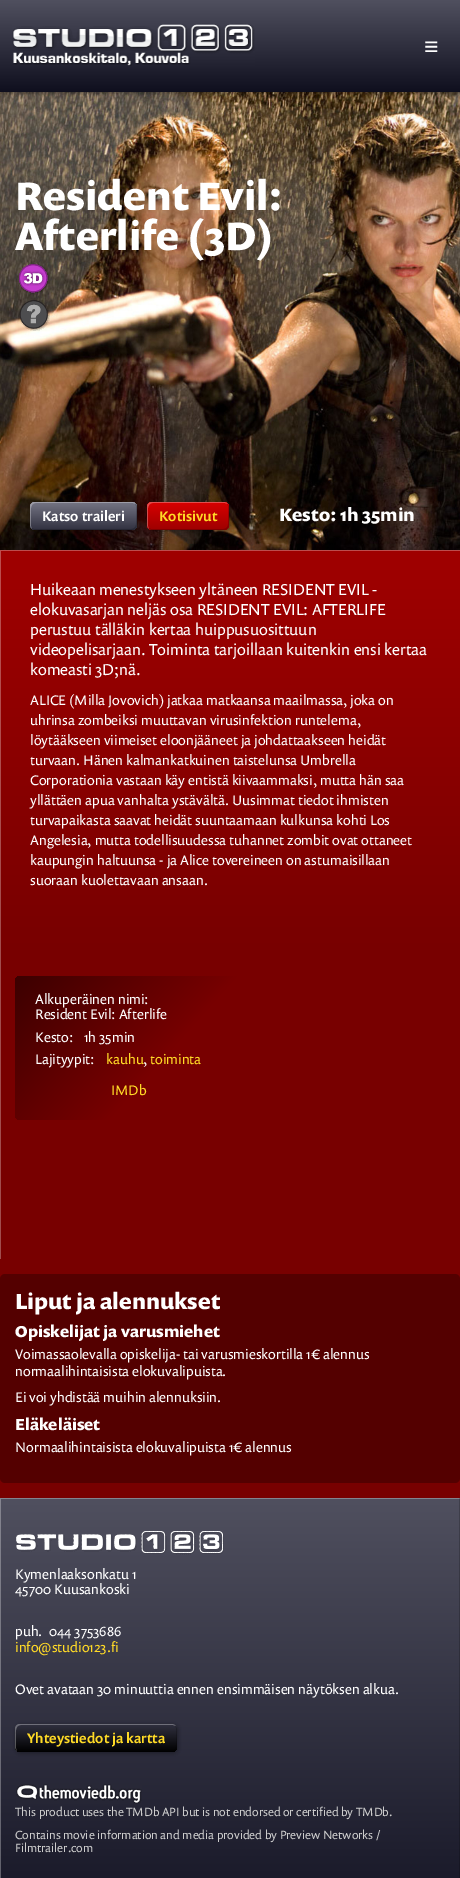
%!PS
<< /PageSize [460 1878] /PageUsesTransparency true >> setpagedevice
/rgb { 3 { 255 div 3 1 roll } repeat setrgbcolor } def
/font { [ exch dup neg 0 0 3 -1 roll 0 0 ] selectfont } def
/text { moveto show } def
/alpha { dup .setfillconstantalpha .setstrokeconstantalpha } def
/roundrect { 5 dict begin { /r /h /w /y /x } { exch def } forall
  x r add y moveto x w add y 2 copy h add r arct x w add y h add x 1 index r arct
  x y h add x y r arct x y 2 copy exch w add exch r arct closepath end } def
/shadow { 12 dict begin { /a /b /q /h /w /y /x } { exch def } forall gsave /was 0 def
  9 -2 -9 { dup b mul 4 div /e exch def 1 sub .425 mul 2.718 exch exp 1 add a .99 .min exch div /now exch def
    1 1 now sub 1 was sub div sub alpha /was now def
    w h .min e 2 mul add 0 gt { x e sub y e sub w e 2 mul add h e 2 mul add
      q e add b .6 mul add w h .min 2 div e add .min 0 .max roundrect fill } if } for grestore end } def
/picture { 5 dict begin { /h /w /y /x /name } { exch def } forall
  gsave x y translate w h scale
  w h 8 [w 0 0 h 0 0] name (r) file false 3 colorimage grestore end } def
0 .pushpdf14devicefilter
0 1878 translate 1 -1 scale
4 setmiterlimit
255 255 255 rgb
0 0 460 1878 rectfill
(img_02.rgb) 0 92 460 458 picture
0 0 0 rgb
1 1 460 92 0 2.5 0.5 shadow
gsave 0 0 moveto 460 0 rlineto 0 92 rlineto -460 0 rlineto closepath clip newpath
<< /ShadingType 2 /ColorSpace /DeviceRGB /Coords [230 0 230 92] /Extend [true true] /Function << /FunctionType 2 /Domain [0 1] /C0 [0.314 0.314 0.373] /C1 [0.059 0.059 0.118] /N 1 >> >> shfill grestore
(img_01.rgb) 12 23 243 43 picture
(img_03.rgb) 18 263 32 32 picture
(img_04.rgb) 19 300 31 31 picture
31 503 107 28 5 2 0.35 shadow
gsave 30 502 107 28 5 roundrect clip newpath
<< /ShadingType 2 /ColorSpace /DeviceRGB /Coords [84 502 84 530] /Extend [true true] /Function << /FunctionType 2 /Domain [0 1] /C0 [0.459 0.459 0.518] /C1 [0.192 0.192 0.251] /N 1 >> >> shfill grestore
0.3 alpha
255 255 255 rgb
36 503 moveto 97 0 rlineto 3 1 rlineto -1 -1 -3 -2 -4 -2 rcurveto -97 0 rlineto -3 0 -5 2 -5 5 rcurveto 0 18 rlineto 0 1 1 3 2 4 rcurveto -2 -3 -1 -9 -1 -12 rcurveto 0 -4 -2 -14 5 -14 rcurveto closepath fill
0.2 alpha
0 0 0 rgb
31 528 moveto 1 1 3 2 4 2 rcurveto 97 0 rlineto 3 0 5 -2 5 -5 rcurveto 0 -18 rlineto 0 -1 -1 -3 -2 -4 rcurveto 1 3 rlineto 0 18 rlineto 0 3 -2 5 -5 5 rcurveto -97 0 rlineto closepath fill
1 alpha
148 503 82 28 5 2 0.35 shadow
gsave 147 502 82 28 5 roundrect clip newpath
<< /ShadingType 2 /ColorSpace /DeviceRGB /Coords [188 502 188 530] /Extend [true true] /Function << /FunctionType 2 /Domain [0 1] /C0 [0.851 0 0] /C1 [0.62 0 0] /N 1 >> >> shfill grestore
0.3 alpha
255 255 255 rgb
153 503 moveto 72 0 rlineto 3 1 rlineto -1 -1 -3 -2 -4 -2 rcurveto -72 0 rlineto -3 0 -5 2 -5 5 rcurveto 0 18 rlineto 0 1 1 3 2 4 rcurveto -2 -3 -1 -9 -1 -12 rcurveto 0 -4 -2 -14 5 -14 rcurveto closepath fill
0.2 alpha
0 0 0 rgb
148 528 moveto 1 1 3 2 4 2 rcurveto 72 0 rlineto 3 0 5 -2 5 -5 rcurveto 0 -18 rlineto 0 -1 -1 -3 -2 -4 rcurveto 1 3 rlineto 0 18 rlineto 0 3 -2 5 -5 5 rcurveto -72 0 rlineto closepath fill
1 alpha
gsave 0 550 moveto 460 0 rlineto 0 709 rlineto -460 0 rlineto closepath clip newpath
<< /ShadingType 2 /ColorSpace /DeviceRGB /Coords [230 550 230 1498] /Extend [true true] /Function << /FunctionType 3 /Domain [0 1] /Functions [<< /FunctionType 2 /Domain [0 1] /C0 [0.627 0.004 0.004] /C1 [0.471 0 0] /N 1 >> << /FunctionType 2 /Domain [0 1] /C0 [0.471 0 0] /C1 [0.471 0 0] /N 1 >>] /Bounds [0.42] /Encode [0 1 0 1] >> >> shfill grestore
gsave
0 550 460 948 rectclip
0.3 alpha
255 255 255 rgb
-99 451 moveto 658 0 rlineto 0 1146 rlineto -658 0 rlineto closepath 1 551 moveto 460 0 rlineto 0 948 rlineto -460 0 rlineto closepath eofill
grestore
gsave 15 976 430 144 5 roundrect clip newpath
<< /ShadingType 2 /ColorSpace /DeviceRGB /Coords [75 909 385 1187] /Extend [true true] /Function << /FunctionType 3 /Domain [0 1] /Functions [<< /FunctionType 2 /Domain [0 1] /C0 [0.235 0 0] /C1 [0.471 0 0] /N 1 >> << /FunctionType 2 /Domain [0 1] /C0 [0.471 0 0] /C1 [0.471 0 0] /N 1 >>] /Bounds [0.4] /Encode [0 1 0 1] >> >> shfill grestore
120 0 0 rgb
0 1259 460 239 rectfill
84 0 0 rgb
0 1274 460 209 5 roundrect fill
gsave 0 1498 moveto 460 0 rlineto 0 380 rlineto -460 0 rlineto closepath clip newpath
<< /ShadingType 2 /ColorSpace /DeviceRGB /Coords [230 1498 230 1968] /Extend [true true] /Function << /FunctionType 2 /Domain [0 1] /C0 [0.314 0.314 0.373] /C1 [0.059 0.059 0.118] /N 1 >> >> shfill grestore
gsave
0 1498 460 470 rectclip
0.3 alpha
255 255 255 rgb
-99 1399 moveto 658 0 rlineto 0 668 rlineto -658 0 rlineto closepath 1 1499 moveto 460 0 rlineto 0 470 rlineto -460 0 rlineto closepath eofill
0.2 alpha
0 0 0 rgb
-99 1399 moveto 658 0 rlineto 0 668 rlineto -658 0 rlineto closepath -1 1497 moveto 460 0 rlineto 0 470 rlineto -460 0 rlineto closepath eofill
grestore
(img_05.rgb) 16 1531 208 24 picture
0 0 0 rgb
16 1725 162 28 5 2 0.35 shadow
gsave 15 1724 162 28 5 roundrect clip newpath
<< /ShadingType 2 /ColorSpace /DeviceRGB /Coords [96 1752 96 1724] /Extend [true true] /Function << /FunctionType 2 /Domain [0 1] /C0 [0 0 0] /C1 [0.192 0.192 0.251] /N 1 >> >> shfill grestore
0.3 alpha
255 255 255 rgb
21 1725 moveto 152 0 rlineto 3 1 rlineto -1 -1 -3 -2 -4 -2 rcurveto -152 0 rlineto -3 0 -5 2 -5 5 rcurveto 0 18 rlineto 0 1 1 3 2 4 rcurveto -2 -3 -1 -9 -1 -12 rcurveto 0 -4 -2 -14 5 -14 rcurveto closepath fill
0.2 alpha
0 0 0 rgb
16 1750 moveto 1 1 3 2 4 2 rcurveto 152 0 rlineto 3 0 5 -2 5 -5 rcurveto 0 -18 rlineto 0 -1 -1 -3 -2 -4 rcurveto 2 3 1 12 1 15 rcurveto 0 4 1 11 -5 11 rcurveto -153 0 rlineto closepath fill
1 alpha
(img_06.rgb) 16 1784 126 20 picture
/LiberationSans-Regular 25 font
255 255 255 rgb
(≡) 424 55 text
/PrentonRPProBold-Bold 40 font
(Resident Evil:) 15 210 text
(Afterlife \(3D\)) 15 250 text
/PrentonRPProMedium-Medium 14 font
(Katso traileri) 42 521 text
255 218 38 rgb
(Kotisivut) 159 521 text
/PrentonRPProBold-Bold 18 font
255 255 255 rgb
(Kesto: 1h 35min) 279 521 text
/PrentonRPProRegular-Regular 16 font
(Huikeaan menestykseen yltäneen RESIDENT EVIL -) 30 595 text
(elokuvasarjan neljäs osa RESIDENT EVIL: AFTERLIFE) 30 615 text
(perustuu tälläkin kertaa huippusuosittuun) 30 635 text
(videopelisarjaan. Toiminta tarjoillaan kuitenkin ensi kertaa) 30 655 text
(komeasti 3D;nä.) 30 675 text
/PrentonRPProRegular-Regular 14 font
(ALICE \(Milla Jovovich\) jatkaa matkaansa maailmassa, joka on) 30 705 text
(uhrinsa zombeiksi muuttavan virusinfektion runtelema,) 30 725 text
(löytääkseen viimeiset eloonjääneet ja johdattaakseen heidät) 30 745 text
(turvaan. Hänen kalmankatkuinen taistelunsa Umbrella) 30 765 text
(Corporationia vastaan käy entistä kiivaammaksi, mutta hän saa) 30 785 text
(yllättäen apua vanhalta ystävältä. Uusimmat tiedot ihmisten) 30 805 text
(turvapaikasta saavat heidät suuntaamaan kulkunsa kohti Los) 30 825 text
(Angelesia, mutta todellisuudessa tuhannet zombit ovat ottaneet) 30 845 text
(kaupungin haltuunsa - ja Alice tovereineen on astumaisillaan) 30 865 text
(suoraan kuolettavaan ansaan.) 30 885 text
(Alkuperäinen nimi:) 35 1004 text
(Resident Evil: Afterlife) 35 1019 text
(Kesto:) 35 1042 text
(1h 35min) 84 1042 text
(Lajityypit:) 35 1064 text
255 218 38 rgb
(kauhu) 106 1064 text
255 255 255 rgb
(,) 143 1064 text
255 218 38 rgb
(toiminta) 150 1064 text
(IMDb) 111 1095 text
/PrentonRPProBold-Bold 22 font
255 255 255 rgb
(Liput ja alennukset) 15 1309 text
/PrentonRPProBold-Bold 16 font
(Opiskelijat ja varusmiehet) 15 1337 text
/PrentonRPProRegular-Regular 14 font
(Voimassaolevalla opiskelija- tai varusmieskortilla 1€ alennus) 15 1359 text
(normaalihintaisista elokuvalipuista.) 15 1376 text
(Ei voi yhdistää muihin alennuksiin.) 15 1402 text
/PrentonRPProBold-Bold 16 font
(Eläkeläiset) 15 1430 text
/PrentonRPProRegular-Regular 14 font
(Normaalihintaisista elokuvalipuista 1€ alennus) 15 1452 text
(Kymenlaaksonkatu 1) 15 1579 text
(45700 Kuusankoski) 15 1594 text
(puh.  044 3753686) 15 1636 text
255 218 38 rgb
(info@studio123.fi) 15 1652 text
255 255 255 rgb
(Ovet avataan 30 minuuttia ennen ensimmäisen näytöksen alkua.) 15 1694 text
/PrentonRPProMedium-Medium 14 font
255 218 38 rgb
(Yhteystiedot ja kartta) 27 1743 text
/PrentonRPProRegular-Regular 12 font
204 204 204 rgb
(This product uses the TMDb API but is not endorsed or certified by TMDb.) 15 1816 text
(Contains movie information and media provided by Preview Networks /) 15 1839 text
(Filmtrailer.com) 15 1852 text
.poppdf14devicefilter showpage
